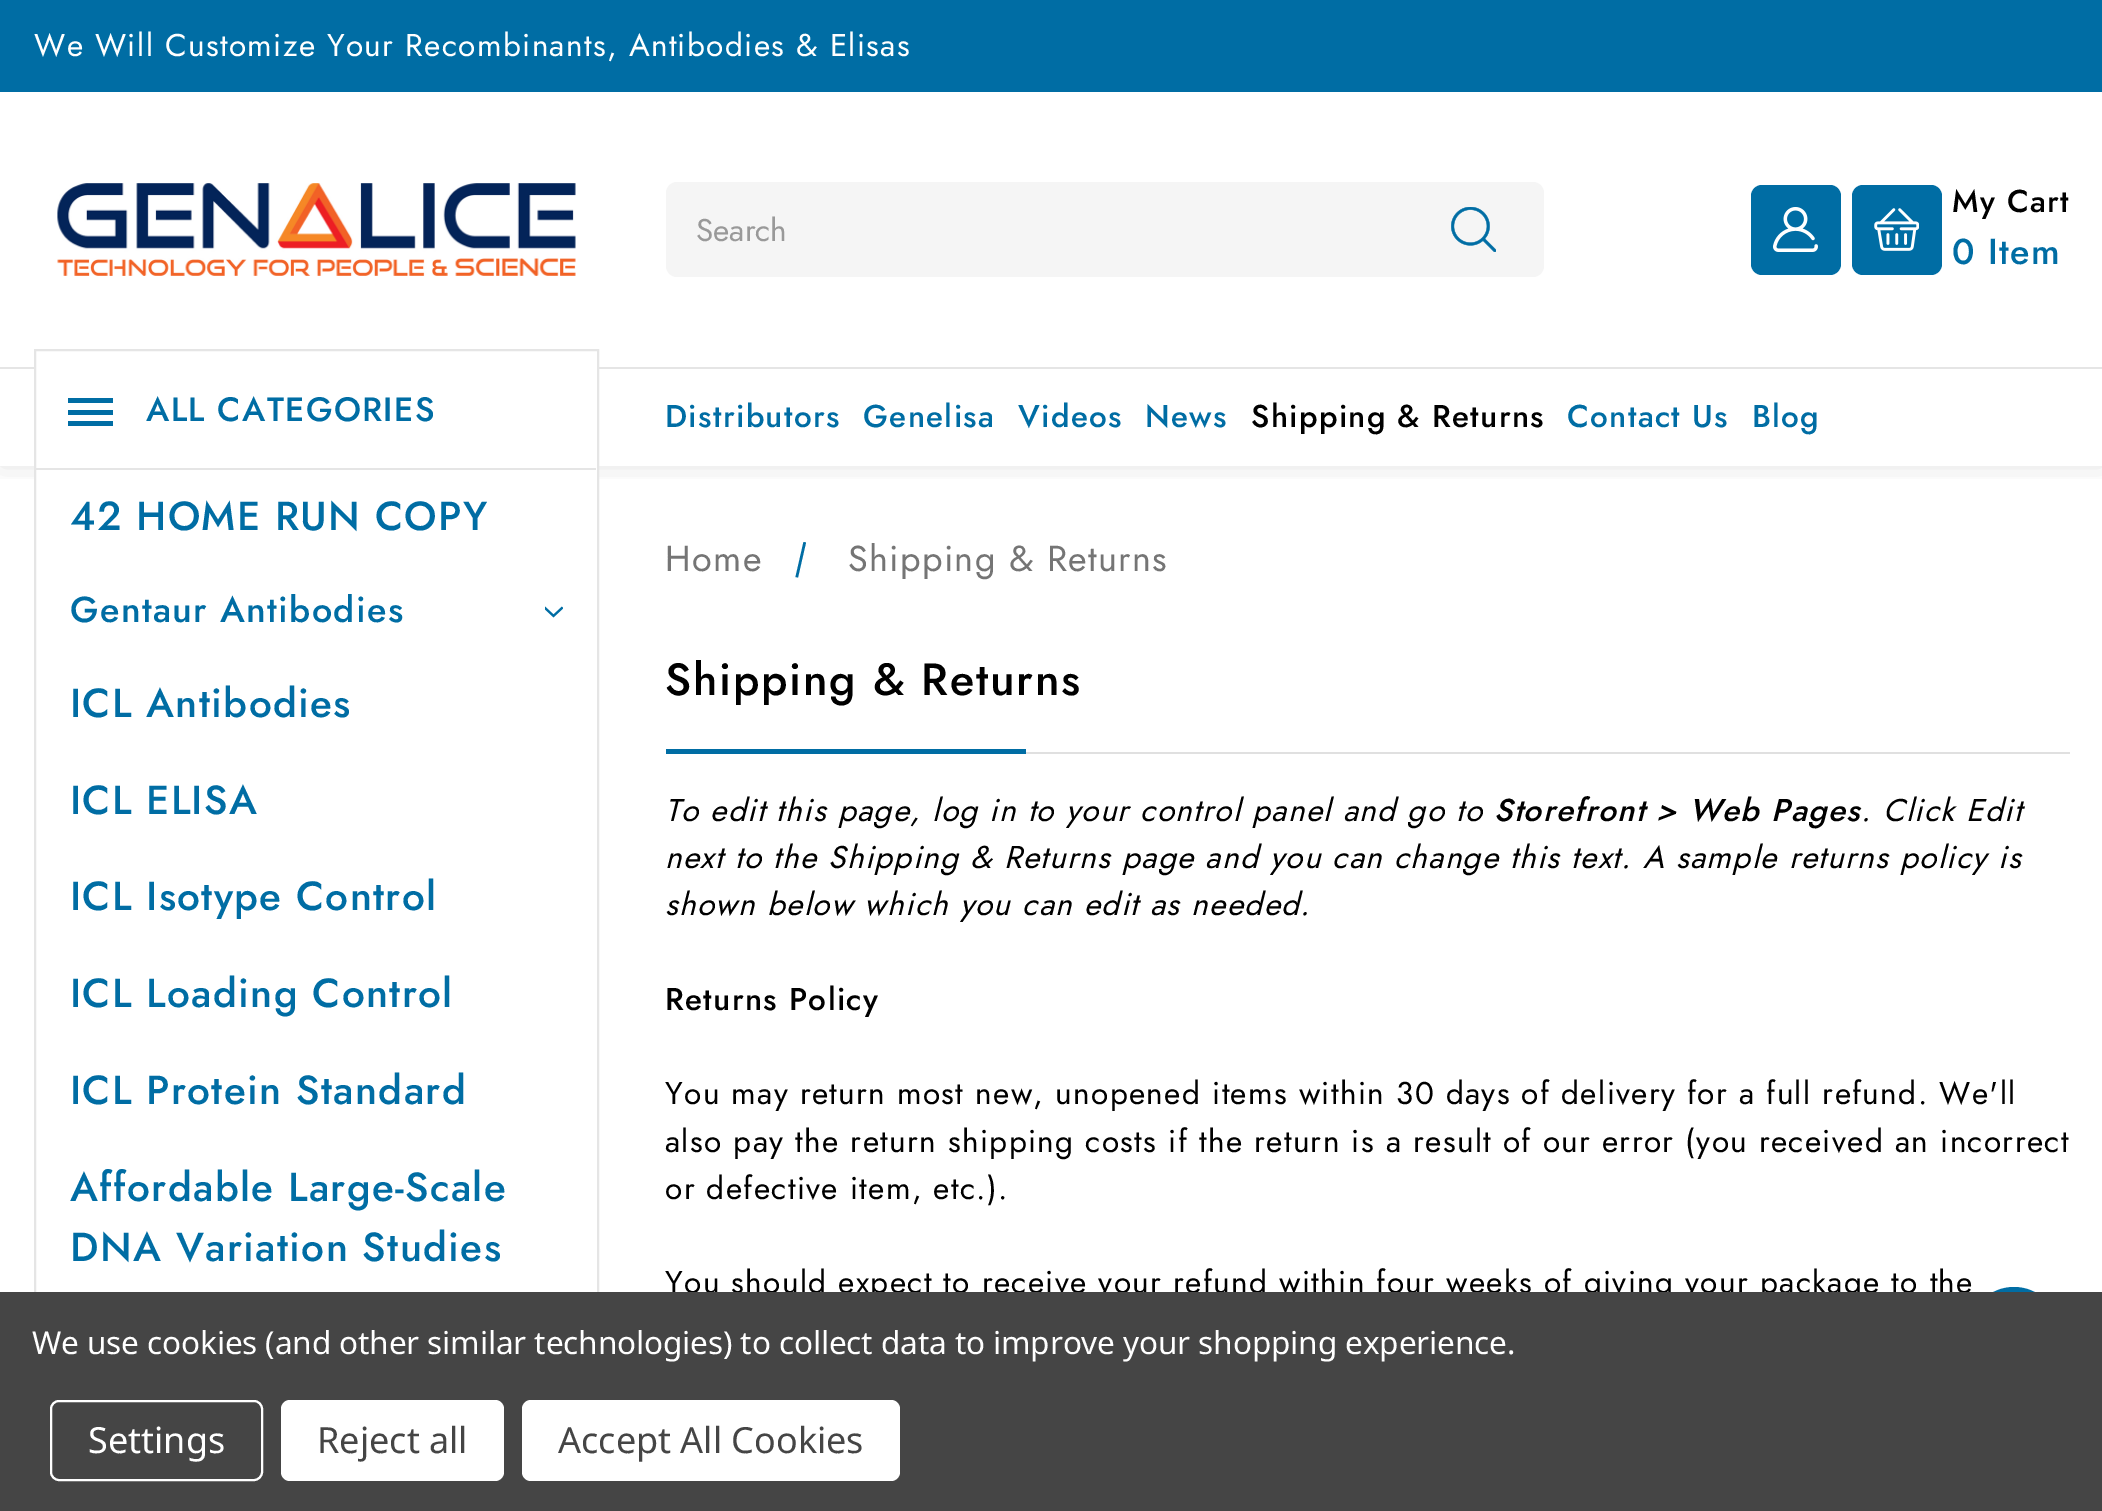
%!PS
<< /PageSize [2102 1511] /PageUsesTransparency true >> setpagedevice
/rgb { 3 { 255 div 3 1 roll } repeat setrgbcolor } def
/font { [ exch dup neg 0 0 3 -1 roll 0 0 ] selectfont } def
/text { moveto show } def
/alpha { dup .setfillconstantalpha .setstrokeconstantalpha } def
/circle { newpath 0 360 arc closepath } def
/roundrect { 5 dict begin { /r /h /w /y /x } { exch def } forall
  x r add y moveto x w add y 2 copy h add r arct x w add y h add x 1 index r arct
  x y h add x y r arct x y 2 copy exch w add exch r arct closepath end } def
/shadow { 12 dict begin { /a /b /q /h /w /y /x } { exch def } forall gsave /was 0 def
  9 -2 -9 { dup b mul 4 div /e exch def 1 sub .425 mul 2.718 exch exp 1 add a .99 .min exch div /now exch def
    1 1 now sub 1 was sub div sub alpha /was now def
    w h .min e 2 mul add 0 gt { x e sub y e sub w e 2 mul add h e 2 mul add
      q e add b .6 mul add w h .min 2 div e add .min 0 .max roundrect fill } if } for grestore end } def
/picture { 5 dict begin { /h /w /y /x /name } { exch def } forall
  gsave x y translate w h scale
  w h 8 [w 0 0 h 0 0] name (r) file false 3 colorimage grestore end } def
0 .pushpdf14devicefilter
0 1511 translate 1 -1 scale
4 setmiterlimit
255 255 255 rgb
0 0 2102 1511 rectfill
0 109 164 rgb
0 0 2102 92 rectfill
gsave
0 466 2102 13 rectclip
4 0 0 rgb
0 369 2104 97 0 14.5 0.11 shadow
grestore
255 255 255 rgb
0 350 2102 17 rectfill
229 229 229 rgb
0 367 2102 2 rectfill
(img_01.rgb) 57 183 519 93 picture
245 245 245 rgb
666 182 878 95 11 roundrect fill
(img_02.rgb) 1451 207 45 45 picture
0 109 164 rgb
1751 185 90 90 11 roundrect fill
(img_03.rgb) 1773 207 45 45 picture
1852 185 90 90 11 roundrect fill
(img_04.rgb) 1874 208 45 43 picture
255 255 255 rgb
36 367 561 118 rectfill
229 229 229 rgb
2 setlinewidth
35 350 563 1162 rectstroke
36 468 560 2 rectfill
0 109 164 rgb
68 398 45 5 rectfill
68 410 45 5 rectfill
68 421 45 5 rectfill
(img_05.rgb) 545 606 18 12 picture
803.5 542 moveto 2.5 0.5 rlineto -8 35 rlineto -2.5 -0.5 rlineto closepath fill
666 749 360 5 rectfill
224 224 224 rgb
1026 752 1044 2 rectfill
/Jost-Regular 31.5 font
255 255 255 rgb
34 56 moveto 1.35 0 (We Will Customize Your Recombinants, Antibodies & Elisas) ashow
153 153 153 rgb
(Search) 696 241 text
/Jost-Medium 31.5 font
0 0 0 rgb
1952 212 moveto 1.35 0 (My Cart) ashow
/Jost-Medium 36 font
0 109 164 rgb
1952 264 moveto 1.35 0 (0 Item) ashow
/Jost-Medium 31.5 font
665 427 moveto 1.35 0 (Distributors) ashow
863 427 moveto 1.35 0 (Genelisa) ashow
1018 427 moveto 1.35 0 (Videos) ashow
1145 427 moveto 1.35 0 (News) ashow
0 0 0 rgb
1251 427 moveto 1.35 0 (Shipping & Returns) ashow
0 109 164 rgb
1567 427 moveto 1.35 0 (Contact Us) ashow
1752 427 moveto 1.35 0 (Blog) ashow
/Jost-Medium 33.75 font
146 421 moveto 1.35 0 (ALL CATEGORIES) ashow
/Jost-Medium 40.5 font
70 530 moveto 1.35 0 (42 HOME RUN COPY) ashow
/Jost-Medium 36 font
70 622 moveto 1.35 0 (Gentaur Antibodies) ashow
/Jost-Medium 40.5 font
70 717 moveto 1.35 0 (ICL Antibodies) ashow
70 814 moveto 1.35 0 (ICL ELISA) ashow
70 910 moveto 1.35 0 (ICL Isotype Control) ashow
70 1007 moveto 1.35 0 (ICL Loading Control) ashow
70 1104 moveto 1.35 0 (ICL Protein Standard) ashow
70 1201 moveto 1.35 0 (Affordable Large-Scale) ashow
70 1261 moveto 1.35 0 (DNA Variation Studies) ashow
/Jost-Regular 36 font
117 117 117 rgb
665 571 moveto 1.35 0 (Home) ashow
848 571 moveto 1.35 0 (Shipping & Returns) ashow
/Jost-Medium 45 font
0 0 0 rgb
665 695 moveto 1.75 0 (Shipping & Returns) ashow
/Jost-Italic 31.5 font
665 821 moveto 1.35 0 (To edit this page, log in to your control panel and go to) ashow
/Jost-MediumItalic 31.5 font
1494 821 moveto 1.35 0 (Storefront > Web Pages) ashow
/Jost-Italic 31.5 font
1861 821 moveto 1.35 0 (. Click Edit) ashow
665 868 moveto 1.35 0 (next to the Shipping & Returns page and you can change this text. A sample returns policy is) ashow
665 915 moveto 1.35 0 (shown below which you can edit as needed.) ashow
/Jost-Medium 31.5 font
665 1010 moveto 1.35 0 (Returns Policy) ashow
/Jost-Regular 31.5 font
665 1104 moveto 1.35 0 (You may return most new, unopened items within 30 days of delivery for a full refund. We'll) ashow
665 1152 moveto 1.35 0 (also pay the return shipping costs if the return is a result of our error \(you received an incorrect) ashow
665 1199 moveto 1.35 0 (or defective item, etc.\).) ashow
665 1293 moveto 1.35 0 (You should expect to receive your refund within four weeks of giving your package to the) ashow
0 109 164 rgb
2014 1332 45 circle fill
69 69 69 rgb
0 1292 2102 219 rectfill
255 255 255 rgb
522 1400 378 81 9 roundrect fill
/NotoSans-Regular 36 font
69 69 69 rgb
(Accept All Cookies) 558 1453 text
255 255 255 rgb
281 1400 223 81 9 roundrect fill
69 69 69 rgb
(Reject all) 317 1453 text
255 255 255 rgb
51 1401 211 79 8 roundrect stroke
(Settings) 88 1453 text
/NotoSans-Regular 31.5 font
32 1354 moveto -0.1 0 (We use cookies \(and other similar technologies\) to collect data to improve your shopping experience.) ashow
.poppdf14devicefilter showpage
